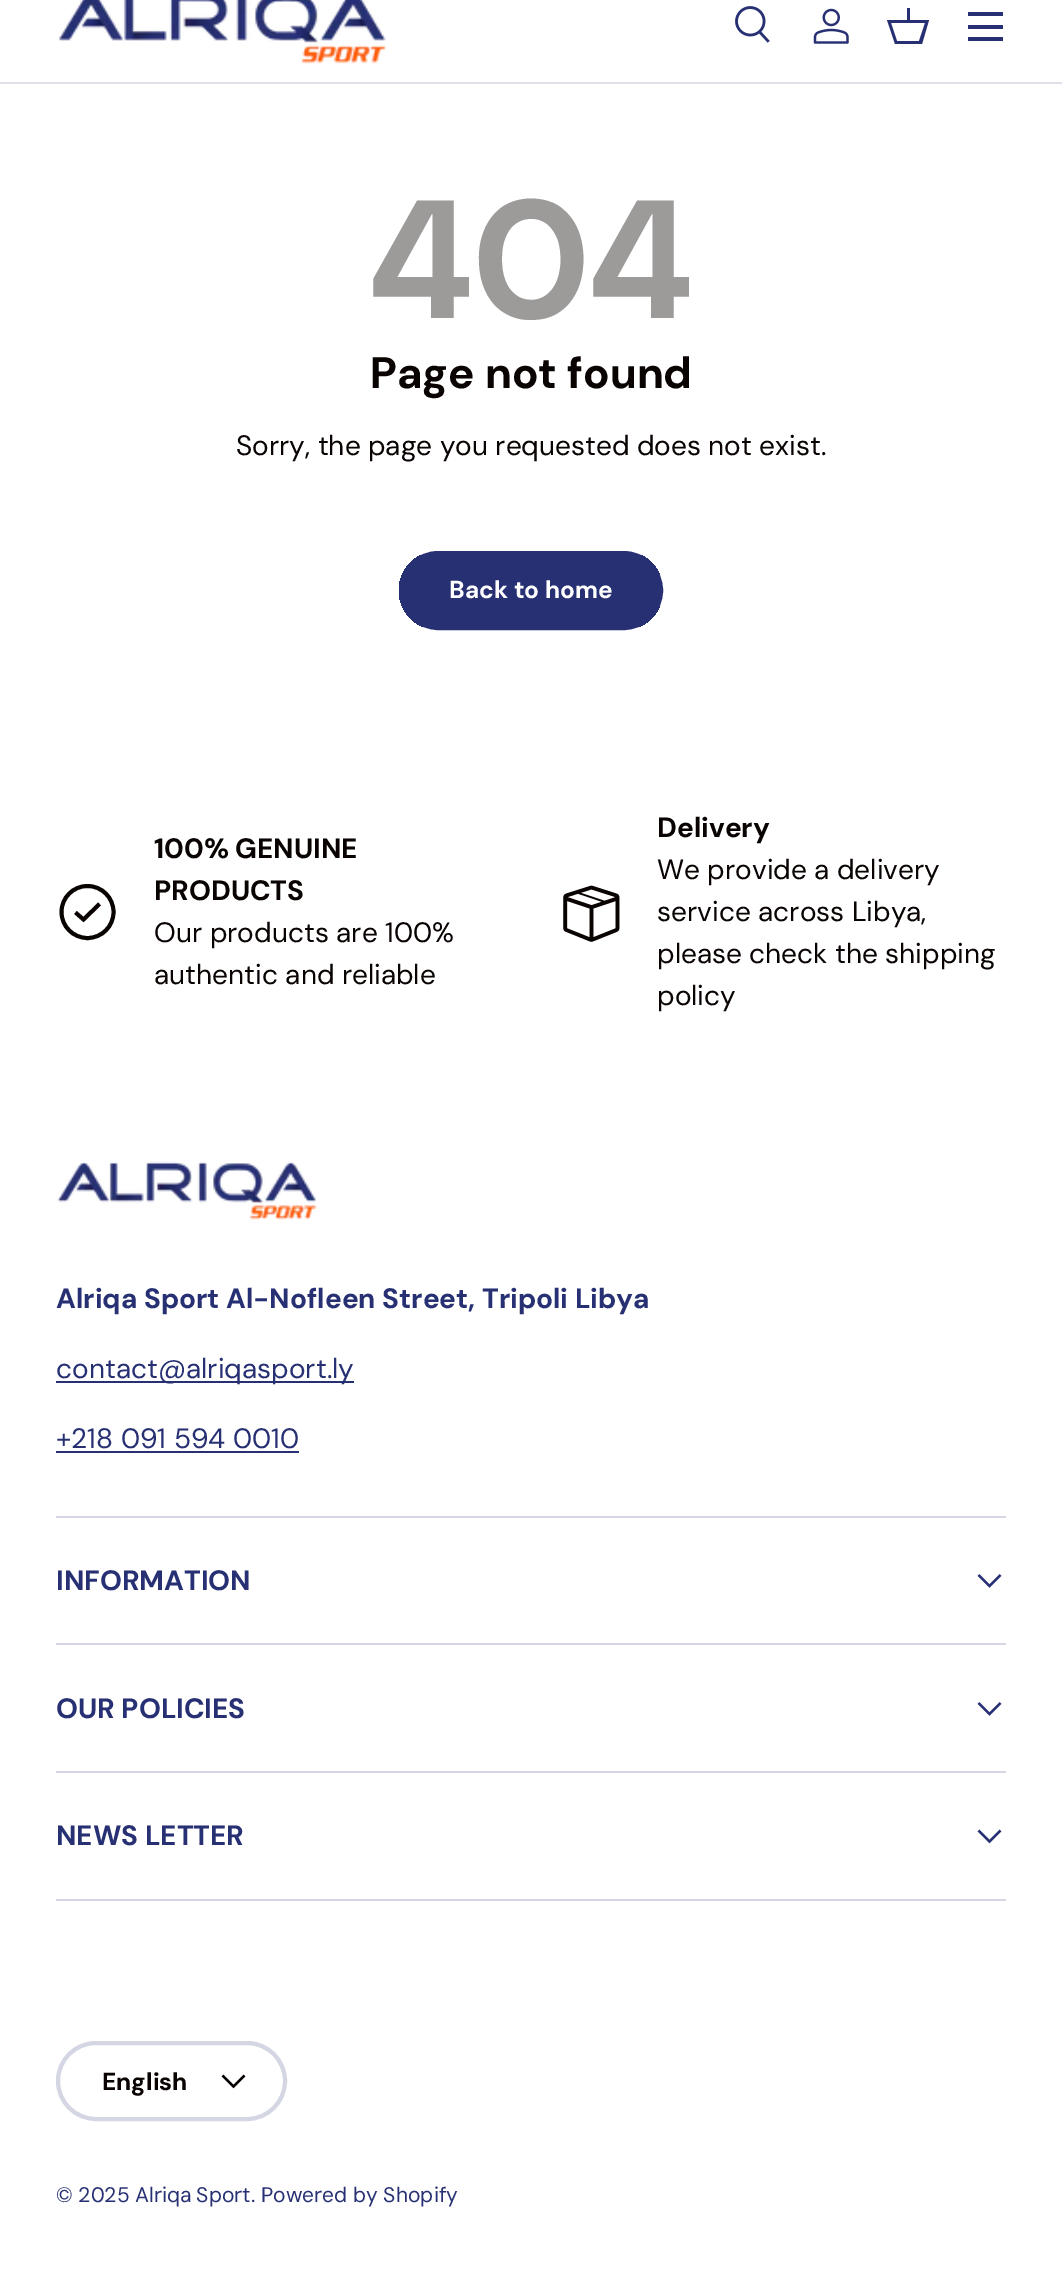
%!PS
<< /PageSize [1062 2280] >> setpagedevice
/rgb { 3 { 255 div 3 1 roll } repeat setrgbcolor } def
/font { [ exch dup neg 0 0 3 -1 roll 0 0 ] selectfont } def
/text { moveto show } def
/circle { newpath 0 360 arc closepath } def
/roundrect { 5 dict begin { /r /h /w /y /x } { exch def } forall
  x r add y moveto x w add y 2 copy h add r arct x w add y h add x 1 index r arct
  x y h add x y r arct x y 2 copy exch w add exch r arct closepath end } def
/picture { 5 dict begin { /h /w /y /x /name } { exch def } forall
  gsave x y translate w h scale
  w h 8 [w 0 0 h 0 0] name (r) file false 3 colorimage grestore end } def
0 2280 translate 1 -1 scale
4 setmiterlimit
255 255 255 rgb
0 0 1062 2280 rectfill
223 224 234 rgb
0 82 1062 2 rectfill
(img_01.rgb) 59 0 327 64 picture
(img_02.rgb) 735 6 35 37 picture
(img_03.rgb) 813 8 36 36 picture
39 48 115 rgb
907 20 moveto 0 -12 rlineto 3 0 rlineto 0 12 rlineto 19 0 rlineto -7 24 rlineto -27 0 rlineto -8 -24 rlineto closepath 891 23 moveto 6 18 rlineto 22 0 rlineto 6 -18 rlineto closepath fill
968 12 35 4 rectfill
968 37 35 4 rectfill
968 25 35 4 rectfill
gsave
399 551 264 79 39.5 roundrect clip newpath
gsave 399 555 moveto 261 0 rlineto 0 72 rlineto -261 0 rlineto closepath clip newpath
<< /ShadingType 2 /ColorSpace /DeviceRGB /Coords [-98 498 646 683] /Extend [true true] /Function << /FunctionType 3 /Domain [0 1] /Functions [<< /FunctionType 2 /Domain [0 1] /C0 [0.298 0.333 0.573] /C1 [0.298 0.333 0.573] /N 1 >> << /FunctionType 2 /Domain [0 1] /C0 [0.153 0.188 0.451] /C1 [0.153 0.188 0.451] /N 1 >>] /Bounds [0.6] /Encode [0 1 0 1] >> >> shfill grestore
grestore
4 setlinewidth
401 553 260 75 37.5 roundrect stroke
9 3 2 rgb
3.9 setlinewidth
87.5 912 26 circle stroke
99.5 904 moveto -16 15.5 rlineto -8 -7 rlineto stroke
(img_04.rgb) 563 885 57 57 picture
(img_05.rgb) 57 1161 260 59 picture
39 48 115 rgb
56 1381 298 2 rectfill
56 1451 243 2 rectfill
212 214 227 rgb
56 1516 950 2 rectfill
56 1643 950 2 rectfill
39 48 115 rgb
2.2 setlinewidth
1000.5 1575 moveto -11 11 rlineto -11 -11 rlineto stroke
212 214 227 rgb
56 1771 950 2 rectfill
39 48 115 rgb
1000.5 1703 moveto -11 11 rlineto -11 -11 rlineto stroke
212 214 227 rgb
56 1899 950 2 rectfill
39 48 115 rgb
1000.5 1830.5 moveto -11 11 rlineto -11 -11 rlineto stroke
212 214 227 rgb
4 setlinewidth
58 2043 227 76 38 roundrect stroke
9 3 2 rgb
2.2 setlinewidth
244.5 2075.5 moveto -11 11 rlineto -11 -11 rlineto stroke
/DMSans-Bold 168 font
157 154 154 rgb
(404) 369 318 text
/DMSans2-Bold 44 font
9 3 2 rgb
(Page not found) 370 388 text
/DMSans-Regular 28 font
(Sorry, the page you requested does not exist.) 236 455 text
/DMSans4-Bold 24.5 font
255 255 255 rgb
(Back to home) 449 598 text
/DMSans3-Bold 28 font
9 3 2 rgb
(100% GENUINE) 154 858 text
(PRODUCTS) 154 900 text
/DMSans-Regular 28 font
(Our products are 100%) 154 942 text
(authentic and reliable) 154 984 text
/DMSans3-Bold 28 font
(Delivery) 657 837 text
/DMSans-Regular 28 font
(We provide a delivery) 657 879 text
(service across Libya,) 657 921 text
(please check the shipping) 657 963 text
(policy) 657 1005 text
/DMSans3-Bold 28 font
39 48 115 rgb
(Alriqa Sport Al-Nofleen Street, Tripoli Libya) 56 1308 text
/DMSans-Regular 28 font
(contact@alriqasport.ly) 56 1378 text
(+218 091 594 0010) 56 1448 text
/DMSans3-Bold 28 font
(INFORMATION) 56 1590 text
(OUR POLICIES) 56 1718 text
(NEWS LETTER) 56 1845 text
/DMSans4-Bold 24.5 font
9 3 2 rgb
(English) 102 2090 text
/DMSans2-Regular 21 font
39 48 115 rgb
(© 2025) 56 2202 text
135 2202 moveto -1 0 32 (Alriqa Sport) widthshow
(.) 251 2202 text
(Powered by Shopify) 261 2202 text
showpage
